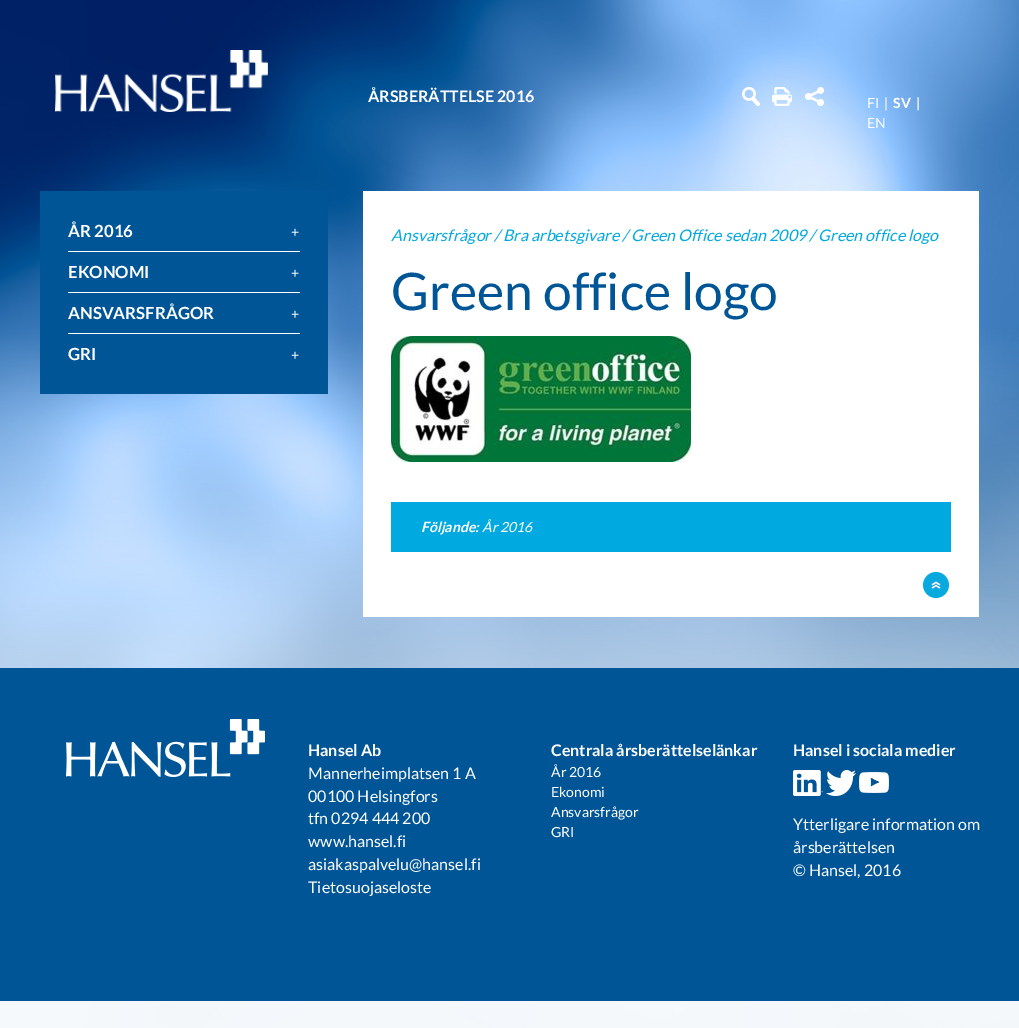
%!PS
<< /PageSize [1019 1028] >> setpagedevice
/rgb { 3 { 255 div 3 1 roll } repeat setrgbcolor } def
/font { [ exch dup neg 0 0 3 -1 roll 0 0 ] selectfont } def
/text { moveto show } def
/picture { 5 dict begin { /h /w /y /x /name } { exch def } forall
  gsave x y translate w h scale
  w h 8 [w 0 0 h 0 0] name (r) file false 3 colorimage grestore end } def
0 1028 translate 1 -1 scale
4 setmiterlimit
255 255 255 rgb
0 0 1019 1028 rectfill
(img_01.rgb) 0 0 1019 1028 picture
(img_02.rgb) 55 50 213 62 picture
(img_03.rgb) 742 87 18 19 picture
(img_04.rgb) 772 87 20 19 picture
(img_05.rgb) 805 87 19 19 picture
0 85 150 rgb
40 191 288 203 rectfill
255 255 255 rgb
68 251 232 1 rectfill
68 292 232 1 rectfill
68 333 232 1 rectfill
363 191 616 426 rectfill
(img_06.rgb) 391 336 300 126 picture
0 169 224 rgb
391 502 560 50 rectfill
(img_07.rgb) 923 572 26 26 picture
0 85 150 rgb
0 668 1019 333 rectfill
(img_08.rgb) 66 719 199 58 picture
(img_09.rgb) 793 770 30 26 picture
(img_10.rgb) 826 770 30 26 picture
(img_11.rgb) 859 772 30 21 picture
/Lato-Bold 16 font
255 255 255 rgb
(ÅRSBERÄTTELSE 2016) 368 102 text
/Lato-Regular 14 font
(FI) 867 108 text
(|) 884 108 text
/Lato-Bold 14 font
(SV) 893 108 text
(|) 916 108 text
/Lato-Regular 14 font
(EN) 867 128 text
/Lato-Bold 16.75 font
(ÅR 2016) 68 237 text
/Lato-Regular 14 font
(+) 291 237 text
/Lato-Bold 16.75 font
(EKONOMI) 68 278 text
/Lato-Regular 14 font
(+) 291 278 text
/Lato-Bold 16.75 font
(ANSVARSFRÅGOR) 68 319 text
/Lato-Regular 14 font
(+) 291 319 text
/Lato-Bold 16.75 font
(GRI) 68 360 text
/Lato-Regular 14 font
(+) 291 360 text
/Lato-Italic 16 font
0 169 224 rgb
(Ansvarsfrågor / Bra arbetsgivare / Green Office sedan 2009 / Green office logo) 391 241 text
/Lato-Regular 51.75 font
0 85 150 rgb
(Green office logo) 391 310 text
/Lato-BoldItalic 14 font
255 255 255 rgb
(Följande:) 421 532 text
/Lato-Italic 14 font
(År 2016) 482 532 text
/Lato-Bold 16 font
(Hansel Ab) 308 756 text
/Lato-Regular 16 font
(Mannerheimplatsen 1 A) 308 779 text
(00100 Helsingfors) 308 802 text
(tfn 0294 444 200) 308 824 text
(www.hansel.fi) 308 847 text
(asiakaspalvelu@hansel.fi) 308 870 text
(Tietosuojaseloste) 308 893 text
/Lato-Bold 16 font
(Centrala årsberättelselänkar) 551 756 text
/Lato-Regular 14 font
(År 2016) 551 777 text
(Ekonomi) 551 797 text
(Ansvarsfrågor) 551 817 text
(GRI) 551 837 text
/Lato-Bold 16 font
(Hansel i sociala medier) 793 756 text
/Lato-Regular 16 font
(Ytterligare information om) 793 830 text
(årsberättelsen) 793 853 text
(© Hansel, 2016) 793 876 text
showpage
